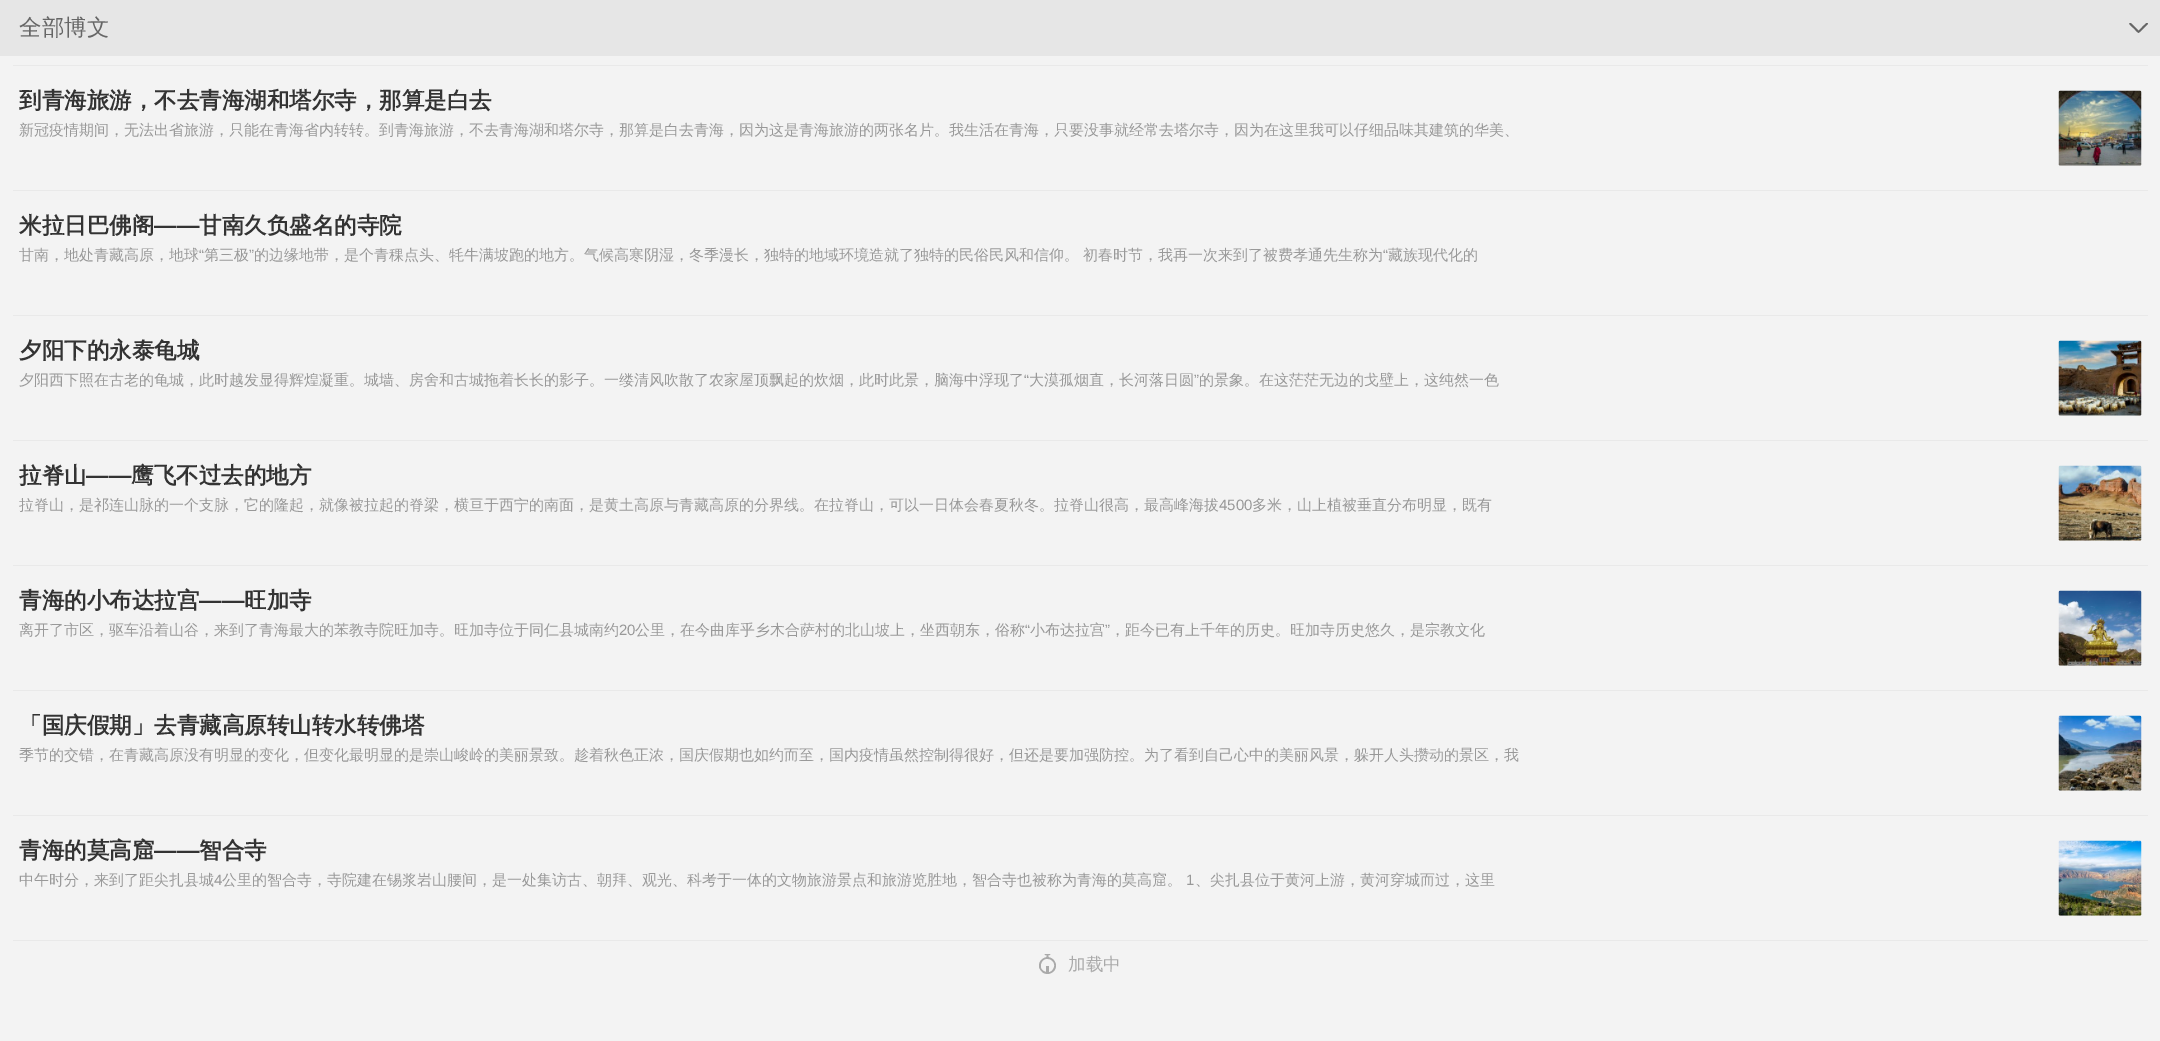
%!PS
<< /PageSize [2160 1041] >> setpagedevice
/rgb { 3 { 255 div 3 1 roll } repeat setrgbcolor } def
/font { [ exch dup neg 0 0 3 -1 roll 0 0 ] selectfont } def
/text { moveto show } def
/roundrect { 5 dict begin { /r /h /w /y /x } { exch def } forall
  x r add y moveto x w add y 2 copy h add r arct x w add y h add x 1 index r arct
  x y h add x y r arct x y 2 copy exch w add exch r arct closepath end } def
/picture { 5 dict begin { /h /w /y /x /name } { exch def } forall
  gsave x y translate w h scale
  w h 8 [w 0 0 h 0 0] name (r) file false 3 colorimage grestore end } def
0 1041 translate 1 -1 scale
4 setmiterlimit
255 255 255 rgb
0 0 2160 1041 rectfill
243 243 243 rgb
0 -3 2160 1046 3 roundrect fill
230 230 230 rgb
0 0 2160 56 rectfill
233 233 233 rgb
13 65 2135 1 rectfill
13 190 2135 1 rectfill
255 255 255 rgb
2059 91 82 75 1 roundrect fill
(img_01.rgb) 2058 90 84 76 picture
233 233 233 rgb
13 315 2135 1 rectfill
13 440 2135 1 rectfill
255 255 255 rgb
2059 341 82 75 1 roundrect fill
(img_02.rgb) 2058 340 84 76 picture
233 233 233 rgb
13 565 2135 1 rectfill
255 255 255 rgb
2059 466 82 75 1 roundrect fill
(img_03.rgb) 2058 465 84 76 picture
233 233 233 rgb
13 690 2135 1 rectfill
255 255 255 rgb
2059 591 82 75 1 roundrect fill
(img_04.rgb) 2058 590 84 76 picture
233 233 233 rgb
13 815 2135 1 rectfill
255 255 255 rgb
2059 716 82 75 1 roundrect fill
(img_05.rgb) 2058 715 84 76 picture
233 233 233 rgb
13 940 2135 1 rectfill
255 255 255 rgb
2059 841 82 75 1 roundrect fill
(img_06.rgb) 2058 840 84 76 picture
170 170 170 rgb
1046 966 3 7 rectfill
/WenQuanYiZenHei-Medium 22.5 font
102 102 102 rgb
(全部博文) 19 35 text
gsave
2108 33.5 moveto 0 -10.5 rlineto 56 0 rlineto 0 10.5 rlineto closepath clip newpath
/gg-Regular 38 font
gsave 2148 33 translate -90 rotate 0 0 moveto (G) show grestore
grestore
/WenQuanYiZenHei-Bold 22.5 font
51 51 51 rgb
(到青海旅游，不去青海湖和塔尔寺，那算是白去) 19 108 text
/WenQuanYiZenHei-Medium 15 font
153 153 153 rgb
(新冠疫情期间，无法出省旅游，只能在青海省内转转。到青海旅游，不去青海湖和塔尔寺，那算是白去青海，因为这是青海旅游的两张名片。我生活在青海，只要没事就经常去塔尔寺，因为在这里我可以仔细品味其建筑的华美、) 19 135 text
/WenQuanYiZenHei-Bold 22.5 font
51 51 51 rgb
(米拉日巴佛阁) 19 233 text
/LiberationSans-Bold 22.5 font
(——) 154 233 text
/WenQuanYiZenHei-Bold 22.5 font
(甘南久负盛名的寺院) 199 233 text
/WenQuanYiZenHei-Medium 15 font
153 153 153 rgb
(甘南，地处青藏高原，地球) 19 260 text
/LiberationSans-Regular 15 font
(“) 199 260 text
/WenQuanYiZenHei-Medium 15 font
(第三极) 204 260 text
/LiberationSans-Regular 15 font
(”) 249 260 text
/WenQuanYiZenHei-Medium 15 font
(的边缘地带，是个青稞点头、牦牛满坡跑的地方。气候高寒阴湿，冬季漫长，独特的地域环境造就了独特的民俗民风和信仰。 初春时节，我再一次来到了被费孝通先生称为) 254 260 text
/LiberationSans-Regular 15 font
(“) 1383 260 text
/WenQuanYiZenHei-Medium 15 font
(藏族现代化的) 1388 260 text
/WenQuanYiZenHei-Bold 22.5 font
51 51 51 rgb
(夕阳下的永泰龟城) 19 358 text
/WenQuanYiZenHei-Medium 15 font
153 153 153 rgb
(夕阳西下照在古老的龟城，此时越发显得辉煌凝重。城墙、房舍和古城拖着长长的影子。一缕清风吹散了农家屋顶飘起的炊烟，此时此景，脑海中浮现了) 19 385 text
/LiberationSans-Regular 15 font
(“) 1024 385 text
/WenQuanYiZenHei-Medium 15 font
(大漠孤烟直，长河落日圆) 1029 385 text
/LiberationSans-Regular 15 font
(”) 1194 385 text
/WenQuanYiZenHei-Medium 15 font
(的景象。在这茫茫无边的戈壁上，这纯然一色) 1199 385 text
/WenQuanYiZenHei-Bold 22.5 font
51 51 51 rgb
(拉脊山) 19 483 text
/LiberationSans-Bold 22.5 font
(——) 86 483 text
/WenQuanYiZenHei-Bold 22.5 font
(鹰飞不过去的地方) 131 483 text
/WenQuanYiZenHei-Medium 15 font
153 153 153 rgb
(拉脊山，是祁连山脉的一个支脉，它的隆起，就像被拉起的脊梁，横亘于西宁的南面，是黄土高原与青藏高原的分界线。在拉脊山，可以一日体会春夏秋冬。拉脊山很高，最高峰海拔) 19 510 text
/LiberationSans-Regular 15 font
(4500) 1219 510 text
/WenQuanYiZenHei-Medium 15 font
(多米，山上植被垂直分布明显，既有) 1252 510 text
/WenQuanYiZenHei-Bold 22.5 font
51 51 51 rgb
(青海的小布达拉宫) 19 608 text
/LiberationSans-Bold 22.5 font
(——) 199 608 text
/WenQuanYiZenHei-Bold 22.5 font
(旺加寺) 244 608 text
/WenQuanYiZenHei-Medium 15 font
153 153 153 rgb
(离开了市区，驱车沿着山谷，来到了青海最大的苯教寺院旺加寺。旺加寺位于同仁县城南约) 19 635 text
/LiberationSans-Regular 15 font
(20) 619 635 text
/WenQuanYiZenHei-Medium 15 font
(公里，在今曲库乎乡木合萨村的北山坡上，坐西朝东，俗称) 635 635 text
/LiberationSans-Regular 15 font
(“) 1025 635 text
/WenQuanYiZenHei-Medium 15 font
(小布达拉宫) 1030 635 text
/LiberationSans-Regular 15 font
(”) 1105 635 text
/WenQuanYiZenHei-Medium 15 font
(，距今已有上千年的历史。旺加寺历史悠久，是宗教文化) 1110 635 text
/WenQuanYiZenHei-Bold 22.5 font
51 51 51 rgb
(「国庆假期」去青藏高原转山转水转佛塔) 19 733 text
/WenQuanYiZenHei-Medium 15 font
153 153 153 rgb
(季节的交错，在青藏高原没有明显的变化，但变化最明显的是崇山峻岭的美丽景致。趁着秋色正浓，国庆假期也如约而至，国内疫情虽然控制得很好，但还是要加强防控。为了看到自己心中的美丽风景，躲开人头攒动的景区，我) 19 760 text
/WenQuanYiZenHei-Bold 22.5 font
51 51 51 rgb
(青海的莫高窟) 19 858 text
/LiberationSans-Bold 22.5 font
(——) 154 858 text
/WenQuanYiZenHei-Bold 22.5 font
(智合寺) 199 858 text
/WenQuanYiZenHei-Medium 15 font
153 153 153 rgb
(中午时分，来到了距尖扎县城) 19 885 text
/LiberationSans-Regular 15 font
(4) 214 885 text
/WenQuanYiZenHei-Medium 15 font
(公里的智合寺，寺院建在锡浆岩山腰间，是一处集访古、朝拜、观光、科考于一体的文物旅游景点和旅游览胜地，智合寺也被称为青海的莫高窟。) 222 885 text
/LiberationSans-Regular 15 font
(1) 1186 885 text
/WenQuanYiZenHei-Medium 15 font
(、尖扎县位于黄河上游，黄河穿城而过，这里) 1195 885 text
gsave
1039 954 17 21 rectclip
/gg-Regular 43 font
170 170 170 rgb
(4) 1039 974 text
grestore
/WenQuanYiZenHei-Medium 17.5 font
170 170 170 rgb
(加载中) 1068 970 text
showpage
